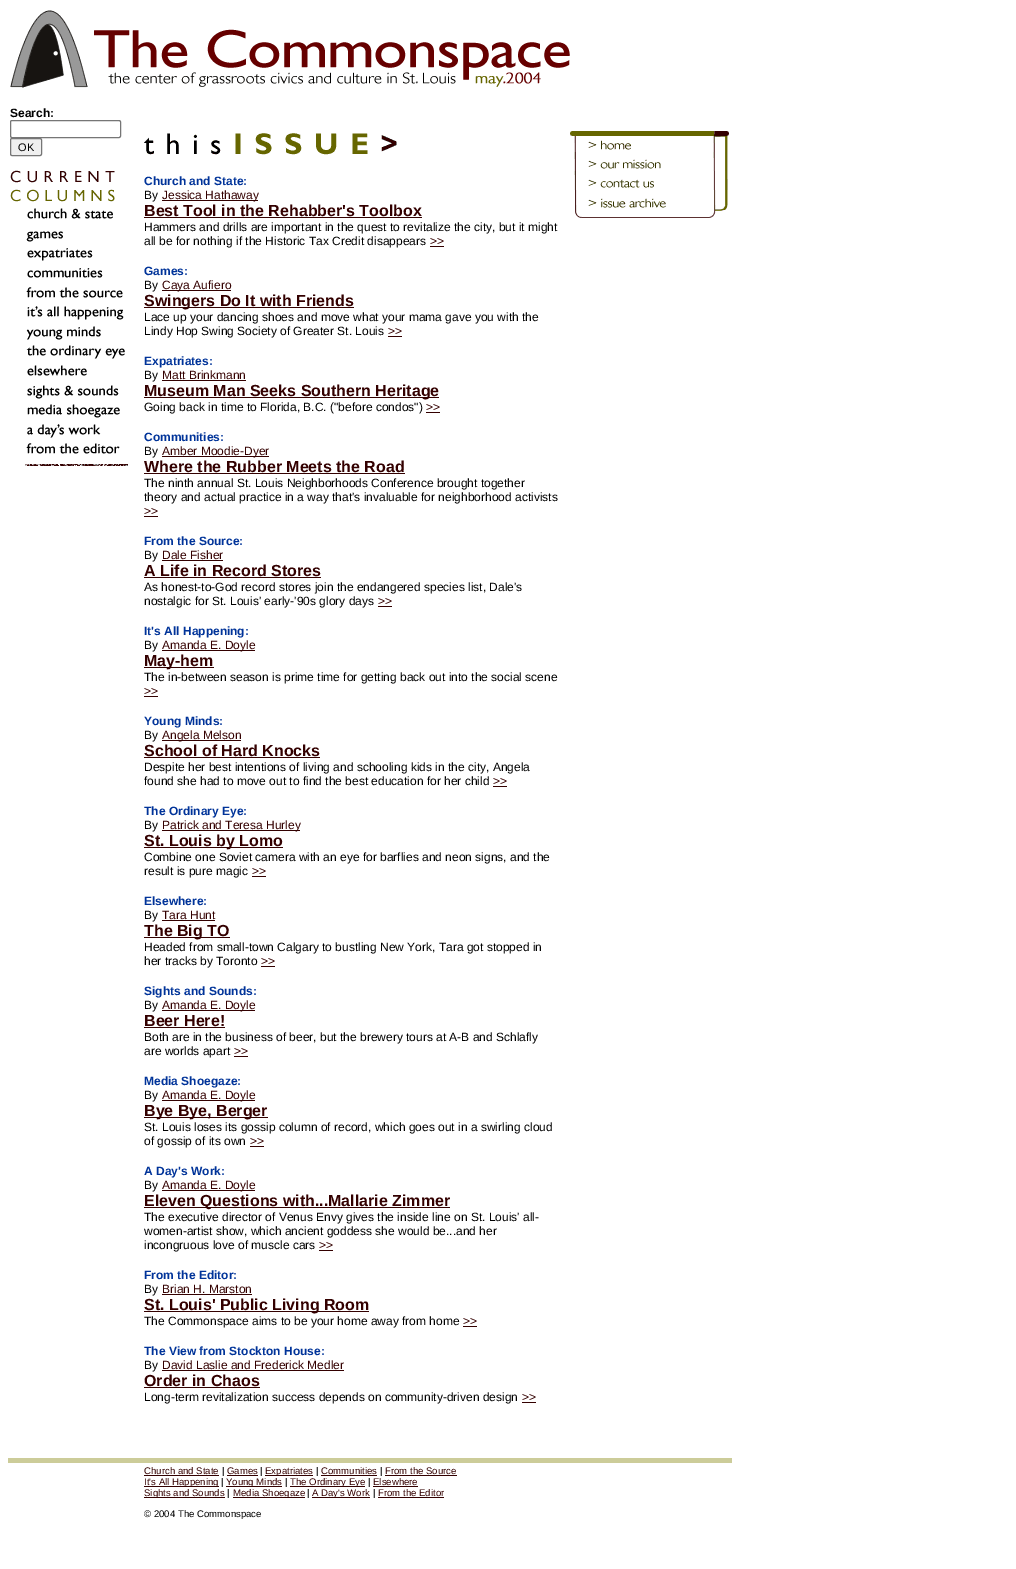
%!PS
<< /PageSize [1016 1569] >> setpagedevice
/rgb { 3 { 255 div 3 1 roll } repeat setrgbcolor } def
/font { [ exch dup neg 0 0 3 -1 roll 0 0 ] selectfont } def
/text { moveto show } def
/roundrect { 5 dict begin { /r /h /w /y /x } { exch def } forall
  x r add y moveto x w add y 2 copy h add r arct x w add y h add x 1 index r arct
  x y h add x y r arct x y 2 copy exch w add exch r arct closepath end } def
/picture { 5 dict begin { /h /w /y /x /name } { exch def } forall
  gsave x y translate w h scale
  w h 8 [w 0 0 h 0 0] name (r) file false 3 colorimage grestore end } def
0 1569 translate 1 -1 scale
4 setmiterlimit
255 255 255 rgb
0 0 1016 1569 rectfill
(img_01.rgb) 10 10 560 78 picture
118 118 118 rgb
10.5 120.5 110 17 1.5 roundrect stroke
239 239 239 rgb
10.5 138.5 31 17 1.5 roundrect gsave fill grestore
118 118 118 rgb
stroke
(img_02.rgb) 10 170 118 296 picture
(img_03.rgb) 144 133 253 22 picture
51 0 0 rgb
162 200 96 1 rectfill
144 217 278 1 rectfill
430 246 14 1 rectfill
162 290 69 1 rectfill
144 307 210 1 rectfill
388 336 14 1 rectfill
162 380 84 1 rectfill
144 397 295 1 rectfill
426 412 14 1 rectfill
162 456 107 1 rectfill
144 473 261 1 rectfill
144 516 14 1 rectfill
162 560 61 1 rectfill
144 577 177 1 rectfill
378 606 14 1 rectfill
162 650 93 1 rectfill
144 667 70 1 rectfill
144 696 14 1 rectfill
162 740 79 1 rectfill
144 757 176 1 rectfill
493 786 14 1 rectfill
162 830 138 1 rectfill
144 847 139 1 rectfill
252 876 14 1 rectfill
162 920 53 1 rectfill
144 937 86 1 rectfill
261 966 14 1 rectfill
162 1010 93 1 rectfill
144 1027 81 1 rectfill
234 1056 14 1 rectfill
162 1100 93 1 rectfill
144 1117 124 1 rectfill
250 1146 14 1 rectfill
162 1190 93 1 rectfill
144 1207 306 1 rectfill
319 1250 14 1 rectfill
162 1294 90 1 rectfill
144 1311 225 1 rectfill
463 1326 14 1 rectfill
162 1370 182 1 rectfill
144 1387 116 1 rectfill
522 1402 14 1 rectfill
(img_04.rgb) 570 131 159 4 picture
(img_05.rgb) 570 135 159 17 picture
(img_06.rgb) 574 152 154 19 picture
(img_07.rgb) 574 171 154 19 picture
(img_08.rgb) 575 190 153 20 picture
(img_09.rgb) 575 210 149 8 picture
204 204 153 rgb
8 1458 724 5 rectfill
51 0 0 rgb
144 1475 75 1 rectfill
227 1475 31 1 rectfill
265 1475 48 1 rectfill
321 1475 56 1 rectfill
385 1475 72 1 rectfill
144 1486 75 1 rectfill
226 1486 56 1 rectfill
290 1486 75 1 rectfill
373 1486 45 1 rectfill
144 1497 81 1 rectfill
233 1497 72 1 rectfill
312 1497 58 1 rectfill
378 1497 66 1 rectfill
/LiberationSans-Bold 12 font
0 0 0 rgb
(Search:) 10 117 text
/LiberationSans-Regular 11 font
(OK) 18 151 text
/LiberationSans-Bold 12 font
0 51 153 rgb
(Church and State:) 144 185 text
/LiberationSans-Regular 12 font
0 0 0 rgb
(By) 144 199 text
51 0 0 rgb
(Jessica Hathaway) 162 199 text
/LiberationSans-Bold 16 font
(Best Tool in the Rehabber's Toolbox) 144 216 text
/LiberationSans-Regular 12 font
0 0 0 rgb
(Hammers and drills are important in the quest to revitalize the city, but it might) 144 231 text
(all be for nothing if the Historic Tax Credit disappears) 144 245 text
51 0 0 rgb
(>>) 430 245 text
/LiberationSans-Bold 12 font
0 51 153 rgb
(Games:) 144 275 text
/LiberationSans-Regular 12 font
0 0 0 rgb
(By) 144 289 text
51 0 0 rgb
(Caya Aufiero) 162 289 text
/LiberationSans-Bold 16 font
(Swingers Do It with Friends) 144 306 text
/LiberationSans-Regular 12 font
0 0 0 rgb
(Lace up your dancing shoes and move what your mama gave you with the) 144 321 text
(Lindy Hop Swing Society of Greater St. Louis) 144 335 text
51 0 0 rgb
(>>) 388 335 text
/LiberationSans-Bold 12 font
0 51 153 rgb
(Expatriates:) 144 365 text
/LiberationSans-Regular 12 font
0 0 0 rgb
(By) 144 379 text
51 0 0 rgb
(Matt Brinkmann) 162 379 text
/LiberationSans-Bold 16 font
(Museum Man Seeks Southern Heritage) 144 396 text
/LiberationSans-Regular 12 font
0 0 0 rgb
(Going back in time to Florida, B.C. \("before condos"\)) 144 411 text
51 0 0 rgb
(>>) 426 411 text
/LiberationSans-Bold 12 font
0 51 153 rgb
(Communities:) 144 441 text
/LiberationSans-Regular 12 font
0 0 0 rgb
(By) 144 455 text
51 0 0 rgb
(Amber Moodie-Dyer) 162 455 text
/LiberationSans-Bold 16 font
(Where the Rubber Meets the Road) 144 472 text
/LiberationSans-Regular 12 font
0 0 0 rgb
(The ninth annual St. Louis Neighborhoods Conference brought together) 144 487 text
(theory and actual practice in a way that's invaluable for neighborhood activists) 144 501 text
51 0 0 rgb
(>>) 144 515 text
/LiberationSans-Bold 12 font
0 51 153 rgb
(From the Source:) 144 545 text
/LiberationSans-Regular 12 font
0 0 0 rgb
(By) 144 559 text
51 0 0 rgb
(Dale Fisher) 162 559 text
/LiberationSans-Bold 16 font
(A Life in Record Stores) 144 576 text
/LiberationSans-Regular 12 font
0 0 0 rgb
(As honest-to-God record stores join the endangered species list, Dale's) 144 591 text
(nostalgic for St. Louis' early-'90s glory days) 144 605 text
51 0 0 rgb
(>>) 378 605 text
/LiberationSans-Bold 12 font
0 51 153 rgb
(It's All Happening:) 144 635 text
/LiberationSans-Regular 12 font
0 0 0 rgb
(By) 144 649 text
51 0 0 rgb
(Amanda E. Doyle) 162 649 text
/LiberationSans-Bold 16 font
(May-hem) 144 666 text
/LiberationSans-Regular 12 font
0 0 0 rgb
(The in-between season is prime time for getting back out into the social scene) 144 681 text
51 0 0 rgb
(>>) 144 695 text
/LiberationSans-Bold 12 font
0 51 153 rgb
(Young Minds:) 144 725 text
/LiberationSans-Regular 12 font
0 0 0 rgb
(By) 144 739 text
51 0 0 rgb
(Angela Melson) 162 739 text
/LiberationSans-Bold 16 font
(School of Hard Knocks) 144 756 text
/LiberationSans-Regular 12 font
0 0 0 rgb
(Despite her best intentions of living and schooling kids in the city, Angela) 144 771 text
(found she had to move out to find the best education for her child) 144 785 text
51 0 0 rgb
(>>) 493 785 text
/LiberationSans-Bold 12 font
0 51 153 rgb
(The Ordinary Eye:) 144 815 text
/LiberationSans-Regular 12 font
0 0 0 rgb
(By) 144 829 text
51 0 0 rgb
(Patrick and Teresa Hurley) 162 829 text
/LiberationSans-Bold 16 font
(St. Louis by Lomo) 144 846 text
/LiberationSans-Regular 12 font
0 0 0 rgb
(Combine one Soviet camera with an eye for barflies and neon signs, and the) 144 861 text
(result is pure magic) 144 875 text
51 0 0 rgb
(>>) 252 875 text
/LiberationSans-Bold 12 font
0 51 153 rgb
(Elsewhere:) 144 905 text
/LiberationSans-Regular 12 font
0 0 0 rgb
(By) 144 919 text
51 0 0 rgb
(Tara Hunt) 162 919 text
/LiberationSans-Bold 16 font
(The Big TO) 144 936 text
/LiberationSans-Regular 12 font
0 0 0 rgb
(Headed from small-town Calgary to bustling New York, Tara got stopped in) 144 951 text
(her tracks by Toronto) 144 965 text
51 0 0 rgb
(>>) 261 965 text
/LiberationSans-Bold 12 font
0 51 153 rgb
(Sights and Sounds:) 144 995 text
/LiberationSans-Regular 12 font
0 0 0 rgb
(By) 144 1009 text
51 0 0 rgb
(Amanda E. Doyle) 162 1009 text
/LiberationSans-Bold 16 font
(Beer Here!) 144 1026 text
/LiberationSans-Regular 12 font
0 0 0 rgb
(Both are in the business of beer, but the brewery tours at A-B and Schlafly) 144 1041 text
(are worlds apart) 144 1055 text
51 0 0 rgb
(>>) 234 1055 text
/LiberationSans-Bold 12 font
0 51 153 rgb
(Media Shoegaze:) 144 1085 text
/LiberationSans-Regular 12 font
0 0 0 rgb
(By) 144 1099 text
51 0 0 rgb
(Amanda E. Doyle) 162 1099 text
/LiberationSans-Bold 16 font
(Bye Bye, Berger) 144 1116 text
/LiberationSans-Regular 12 font
0 0 0 rgb
(St. Louis loses its gossip column of record, which goes out in a swirling cloud) 144 1131 text
(of gossip of its own) 144 1145 text
51 0 0 rgb
(>>) 250 1145 text
/LiberationSans-Bold 12 font
0 51 153 rgb
(A Day's Work:) 144 1175 text
/LiberationSans-Regular 12 font
0 0 0 rgb
(By) 144 1189 text
51 0 0 rgb
(Amanda E. Doyle) 162 1189 text
/LiberationSans-Bold 16 font
(Eleven Questions with...Mallarie Zimmer) 144 1206 text
/LiberationSans-Regular 12 font
0 0 0 rgb
(The executive director of Venus Envy gives the inside line on St. Louis' all-) 144 1221 text
(women-artist show, which ancient goddess she would be...and her) 144 1235 text
(incongruous love of muscle cars) 144 1249 text
51 0 0 rgb
(>>) 319 1249 text
/LiberationSans-Bold 12 font
0 51 153 rgb
(From the Editor:) 144 1279 text
/LiberationSans-Regular 12 font
0 0 0 rgb
(By) 144 1293 text
51 0 0 rgb
(Brian H. Marston) 162 1293 text
/LiberationSans-Bold 16 font
(St. Louis' Public Living Room) 144 1310 text
/LiberationSans-Regular 12 font
0 0 0 rgb
(The Commonspace aims to be your home away from home) 144 1325 text
51 0 0 rgb
(>>) 463 1325 text
/LiberationSans-Bold 12 font
0 51 153 rgb
(The View from Stockton House:) 144 1355 text
/LiberationSans-Regular 12 font
0 0 0 rgb
(By) 144 1369 text
51 0 0 rgb
(David Laslie and Frederick Medler) 162 1369 text
/LiberationSans-Bold 16 font
(Order in Chaos) 144 1386 text
/LiberationSans-Regular 12 font
0 0 0 rgb
(Long-term revitalization success depends on community-driven design) 144 1401 text
51 0 0 rgb
(>>) 522 1401 text
/LiberationSans-Regular 9.6 font
(Church and State) 144 1474 text
0 0 0 rgb
(|) 222 1474 text
51 0 0 rgb
(Games) 227 1474 text
0 0 0 rgb
(|) 260 1474 text
51 0 0 rgb
(Expatriates) 265 1474 text
0 0 0 rgb
(|) 316 1474 text
51 0 0 rgb
(Communities) 321 1474 text
0 0 0 rgb
(|) 380 1474 text
51 0 0 rgb
(From the Source) 385 1474 text
(It's All Happening) 144 1485 text
0 0 0 rgb
(|) 221 1485 text
51 0 0 rgb
(Young Minds) 226 1485 text
0 0 0 rgb
(|) 285 1485 text
51 0 0 rgb
(The Ordinary Eye) 290 1485 text
0 0 0 rgb
(|) 368 1485 text
51 0 0 rgb
(Elsewhere) 373 1485 text
(Sights and Sounds) 144 1496 text
0 0 0 rgb
(|) 227 1496 text
51 0 0 rgb
(Media Shoegaze) 233 1496 text
0 0 0 rgb
(|) 307 1496 text
51 0 0 rgb
(A Day's Work) 312 1496 text
0 0 0 rgb
(|) 373 1496 text
51 0 0 rgb
(From the Editor) 378 1496 text
0 0 0 rgb
(© 2004 The Commonspace) 144 1517 text
showpage
